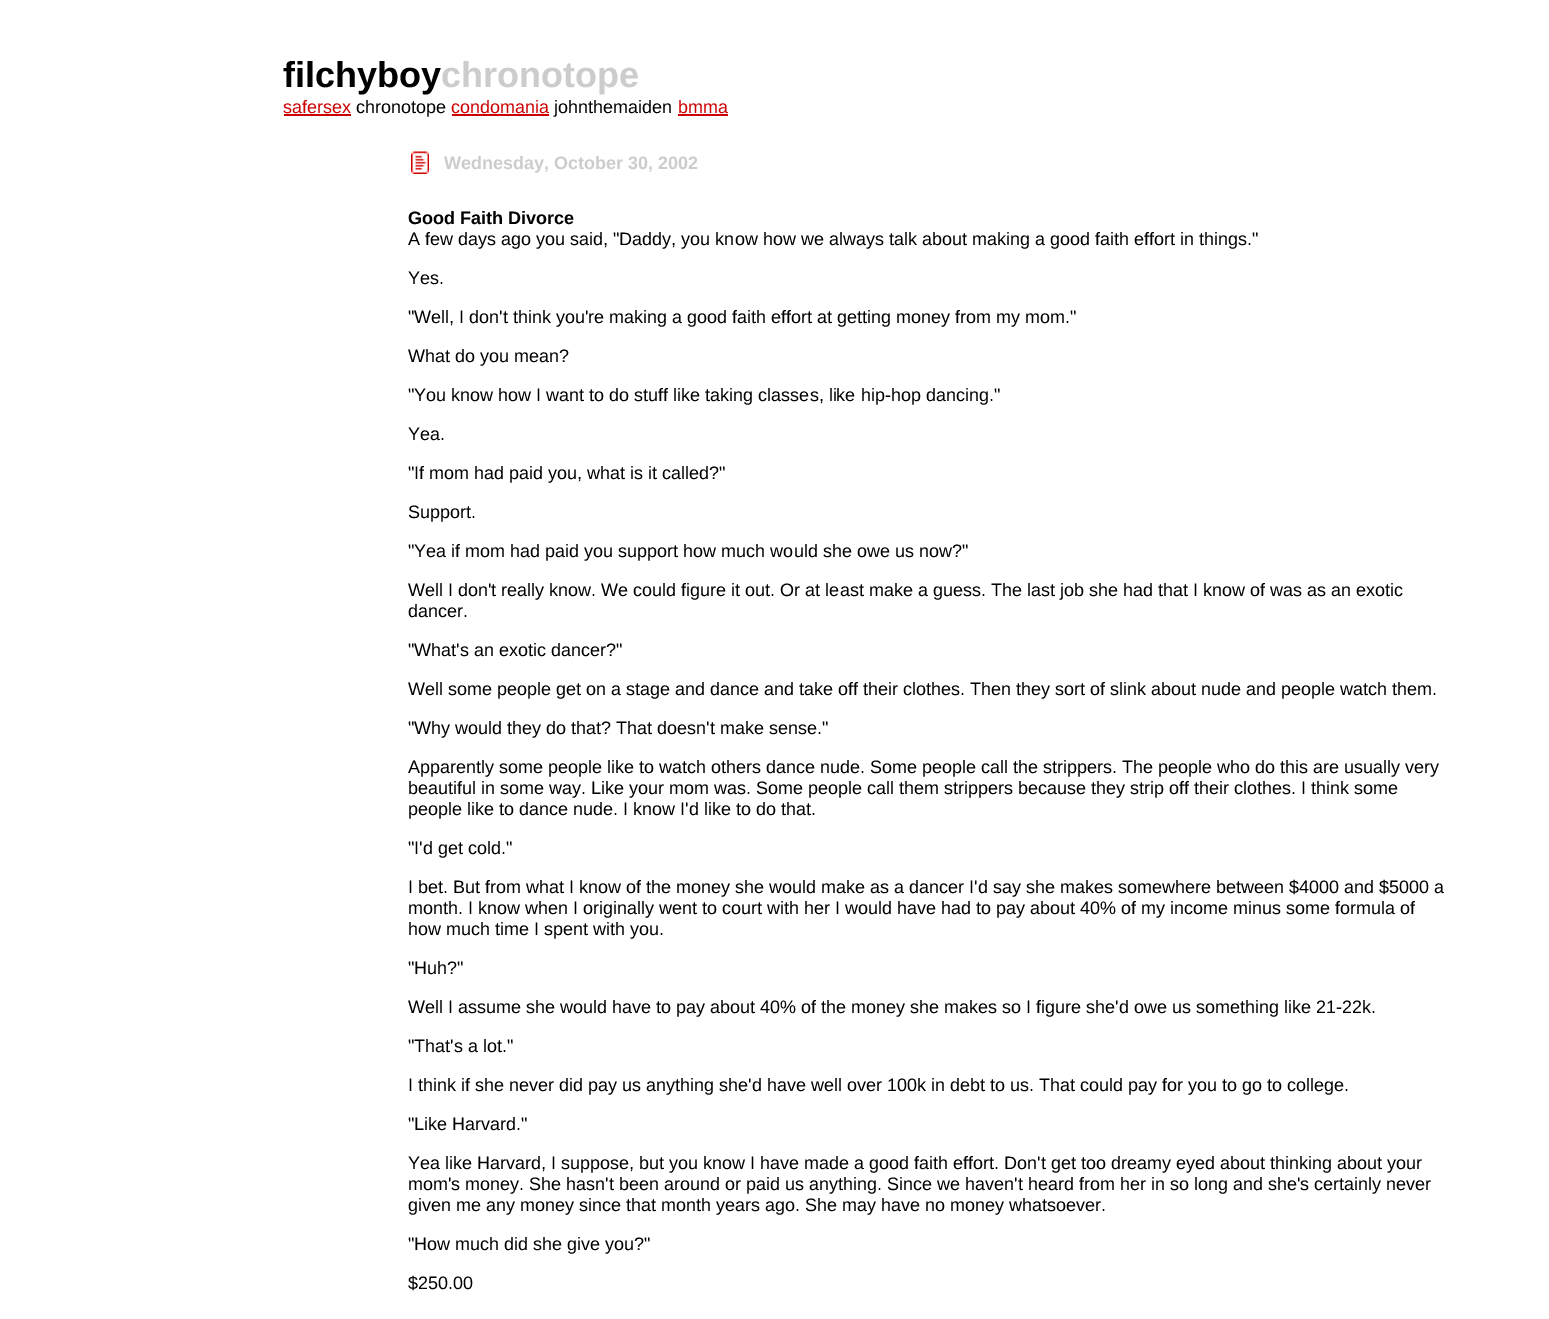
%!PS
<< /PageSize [1549 1319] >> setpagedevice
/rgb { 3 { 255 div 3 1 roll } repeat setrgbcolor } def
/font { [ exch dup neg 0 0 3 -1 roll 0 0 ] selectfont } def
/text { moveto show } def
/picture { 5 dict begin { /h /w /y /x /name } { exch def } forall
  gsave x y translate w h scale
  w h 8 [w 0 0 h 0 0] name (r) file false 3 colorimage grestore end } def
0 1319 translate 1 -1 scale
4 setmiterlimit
255 255 255 rgb
0 0 1549 1319 rectfill
204 0 0 rgb
284 114 67 2 rectfill
452 114 97 2 rectfill
678 114 50 2 rectfill
(img_01.rgb) 411 151 18 23 picture
/LiberationSans-Bold 36 font
0 0 0 rgb
(filchyboy) 283 87 text
204 204 204 rgb
(chronotope) 441 87 text
/LiberationSans-Regular 18 font
204 0 0 rgb
(safersex) 283 113 text
0 0 0 rgb
(chronotope) 356 113 text
204 0 0 rgb
(condomania) 451 113 text
0 0 0 rgb
(johnthemaiden) 554 113 text
204 0 0 rgb
(bmma) 678 113 text
/LiberationSans-Bold 18 font
204 204 204 rgb
(Wednesday, October 30, 2002) 444 169 text
0 0 0 rgb
(Good Faith Divorce) 408 224 text
/LiberationSans-Regular 18 font
(A few days ago you said, "Daddy, you know how we always talk about making a good faith effort in things.") 408 245 text
(Yes.) 408 284 text
("Well, I don't think you're making a good faith effort at getting money from my mom.") 408 323 text
(What do you mean?) 408 362 text
("You know how I want to do stuff like taking classes, like hip-hop dancing.") 408 401 text
(Yea.) 408 440 text
("If mom had paid you, what is it called?") 408 479 text
(Support.) 408 518 text
("Yea if mom had paid you support how much would she owe us now?") 408 557 text
(Well I don't really know. We could figure it out. Or at least make a guess. The last job she had that I know of was as an exotic) 408 596 text
(dancer.) 408 617 text
("What's an exotic dancer?") 408 656 text
(Well some people get on a stage and dance and take off their clothes. Then they sort of slink about nude and people watch them.) 408 695 text
("Why would they do that? That doesn't make sense.") 408 734 text
(Apparently some people like to watch others dance nude. Some people call the strippers. The people who do this are usually very) 408 773 text
(beautiful in some way. Like your mom was. Some people call them strippers because they strip off their clothes. I think some) 408 794 text
(people like to dance nude. I know I'd like to do that.) 408 815 text
("I'd get cold.") 408 854 text
(I bet. But from what I know of the money she would make as a dancer I'd say she makes somewhere between $4000 and $5000 a) 408 893 text
(month. I know when I originally went to court with her I would have had to pay about 40% of my income minus some formula of) 408 914 text
(how much time I spent with you.) 408 935 text
("Huh?") 408 974 text
(Well I assume she would have to pay about 40% of the money she makes so I figure she'd owe us something like 21-22k.) 408 1013 text
("That's a lot.") 408 1052 text
(I think if she never did pay us anything she'd have well over 100k in debt to us. That could pay for you to go to college.) 408 1091 text
("Like Harvard.") 408 1130 text
(Yea like Harvard, I suppose, but you know I have made a good faith effort. Don't get too dreamy eyed about thinking about your) 408 1169 text
(mom's money. She hasn't been around or paid us anything. Since we haven't heard from her in so long and she's certainly never) 408 1190 text
(given me any money since that month years ago. She may have no money whatsoever.) 408 1211 text
("How much did she give you?") 408 1250 text
($250.00) 408 1289 text
showpage
